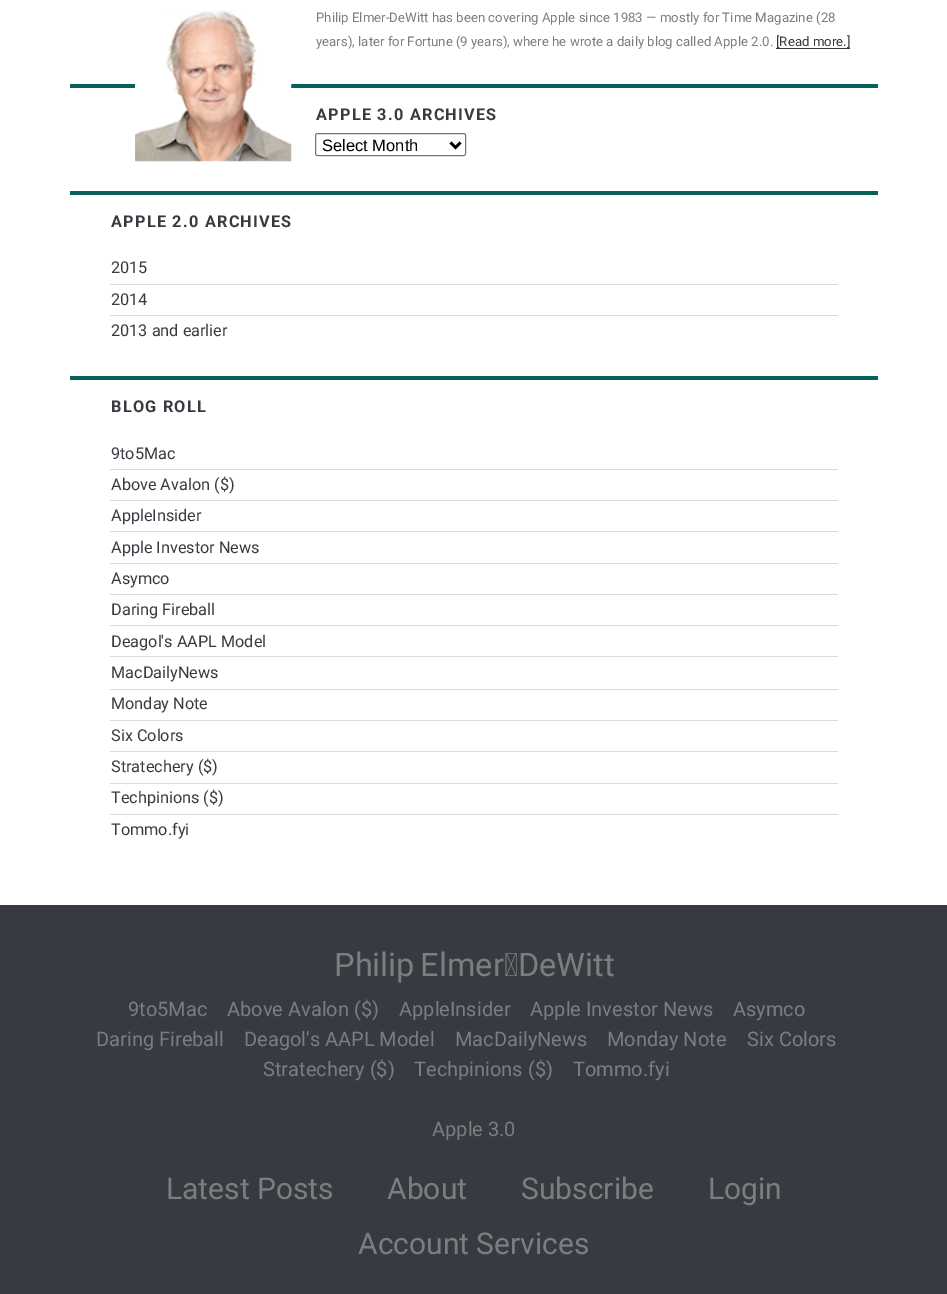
%!PS
<< /PageSize [947 1294] >> setpagedevice
/rgb { 3 { 255 div 3 1 roll } repeat setrgbcolor } def
/font { [ exch dup neg 0 0 3 -1 roll 0 0 ] selectfont } def
/text { moveto show } def
/roundrect { 5 dict begin { /r /h /w /y /x } { exch def } forall
  x r add y moveto x w add y 2 copy h add r arct x w add y h add x 1 index r arct
  x y h add x y r arct x y 2 copy exch w add exch r arct closepath end } def
/picture { 5 dict begin { /h /w /y /x /name } { exch def } forall
  gsave x y translate w h scale
  w h 8 [w 0 0 h 0 0] name (r) file false 3 colorimage grestore end } def
0 1294 translate 1 -1 scale
4 setmiterlimit
255 255 255 rgb
0 0 947 1294 rectfill
8 97 90 rgb
70 84 808 4 rectfill
(img_01.rgb) 135 10 157 152 picture
55 59 65 rgb
776 48 74 1 rectfill
118 118 118 rgb
315.5 133.5 150 22 2 roundrect stroke
0 0 0 rgb
2.5 setlinewidth
450.5 142.5 moveto 5 5 rlineto 5 -5 rlineto stroke
8 97 90 rgb
70 191 808 4 rectfill
217 220 223 rgb
110 284 728 1 rectfill
110 315 728 1 rectfill
8 97 90 rgb
70 376 808 4 rectfill
217 220 223 rgb
110 469 728 1 rectfill
110 500 728 1 rectfill
110 531 728 1 rectfill
110 563 728 1 rectfill
110 594 728 1 rectfill
110 625 728 1 rectfill
110 656 728 1 rectfill
110 689 728 1 rectfill
110 720 728 1 rectfill
110 751 728 1 rectfill
110 783 728 1 rectfill
110 814 728 1 rectfill
55 59 65 rgb
0 905 947 389 rectfill
/Roboto-Regular 13.2 font
124 125 127 rgb
(Philip Elmer-DeWitt has been covering Apple since 1983 — mostly for Time Magazine \(28) 316 22 text
(years\), later for Fortune \(9 years\), where he wrote a daily blog called Apple 2.0.) 316 46 text
55 59 65 rgb
([Read more.]) 776 46 text
/Roboto-Bold 16.25 font
316 120 moveto 1.25 0 (APPLE 3.0 ARCHIVES) ashow
/LiberationSans-Regular 16.5 font
0 0 0 rgb
(Select Month) 322 151 text
/Roboto-Bold 16.25 font
55 59 65 rgb
111 227 moveto 1.25 0 (APPLE 2.0 ARCHIVES) ashow
/Roboto-Regular 16.25 font
(2015) 111 273 text
(2014) 111 305 text
(2013 and earlier) 111 336 text
/Roboto-Bold 16.25 font
111 412 moveto 1.25 0 (BLOG ROLL) ashow
/Roboto-Regular 16.25 font
(9to5Mac) 111 459 text
(Above Avalon \($\)) 111 490 text
(AppleInsider) 111 521 text
(Apple Investor News) 111 553 text
(Asymco) 111 584 text
(Daring Fireball) 111 615 text
(Deagol's AAPL Model) 111 647 text
(MacDailyNews) 111 678 text
(Monday Note) 111 709 text
(Six Colors) 111 741 text
(Stratechery \($\)) 111 772 text
(Techpinions \($\)) 111 803 text
(Tommo.fyi) 111 835 text
/Roboto-Regular 32.5 font
124 125 127 rgb
334 976 moveto -2 0 32 (Philip Elmer‑DeWitt) widthshow
/Roboto-Regular 20 font
(9to5Mac) 128 1016 text
(Above Avalon \($\)) 227 1016 text
(AppleInsider) 399 1016 text
(Apple Investor News) 530 1016 text
(Asymco) 733 1016 text
(Daring Fireball) 96 1046 text
(Deagol's AAPL Model) 244 1046 text
(MacDailyNews) 455 1046 text
(Monday Note) 607 1046 text
(Six Colors) 747 1046 text
(Stratechery \($\)) 263 1076 text
(Techpinions \($\)) 414 1076 text
(Tommo.fyi) 573 1076 text
(Apple 3.0) 432 1136 text
/Roboto-Regular 30 font
(Latest Posts) 166 1199 text
(About) 387 1199 text
(Subscribe) 521 1199 text
(Login) 708 1199 text
(Account Services) 358 1254 text
showpage
